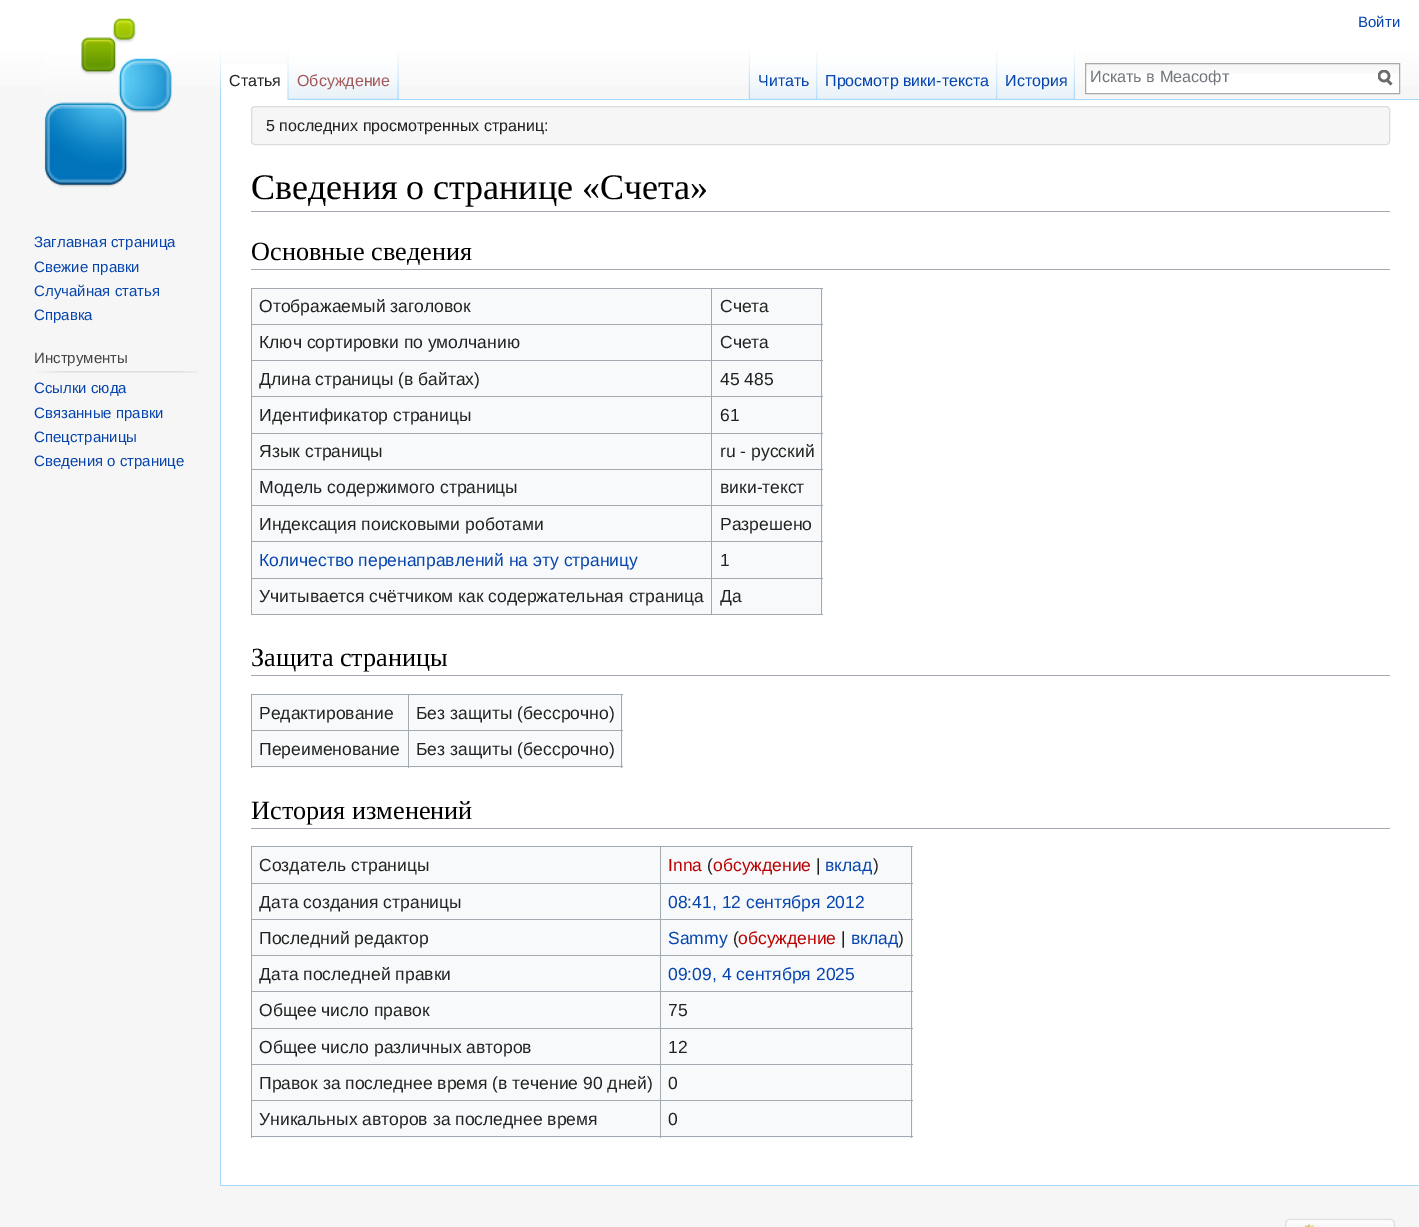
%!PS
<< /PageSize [1419 1227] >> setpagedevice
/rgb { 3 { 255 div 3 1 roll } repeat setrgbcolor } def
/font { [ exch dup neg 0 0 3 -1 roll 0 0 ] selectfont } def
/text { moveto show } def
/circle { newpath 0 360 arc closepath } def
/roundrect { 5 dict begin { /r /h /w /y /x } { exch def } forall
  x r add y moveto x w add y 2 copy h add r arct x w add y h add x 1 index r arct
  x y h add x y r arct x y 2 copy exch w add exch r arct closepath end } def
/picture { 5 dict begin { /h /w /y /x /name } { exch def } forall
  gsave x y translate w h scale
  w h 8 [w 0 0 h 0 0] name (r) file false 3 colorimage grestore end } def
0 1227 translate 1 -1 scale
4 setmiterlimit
246 246 246 rgb
0 0 1419 1227 rectfill
gsave 0 0 moveto 1419 0 rlineto 0 86 rlineto -1419 0 rlineto closepath clip newpath
<< /ShadingType 2 /ColorSpace /DeviceRGB /Coords [710 0 710 100] /Extend [true true] /Function << /FunctionType 3 /Domain [0 1] /Functions [<< /FunctionType 2 /Domain [0 1] /C0 [1 1 1] /C1 [1 1 1] /N 1 >> << /FunctionType 2 /Domain [0 1] /C0 [1 1 1] /C1 [0.965 0.965 0.965] /N 1 >>] /Bounds [0.5] /Encode [0 1 0 1] >> >> shfill grestore
(img_01.rgb) 220 50 1 49 picture
(img_02.rgb) 398 52 1 47 picture
255 255 255 rgb
221 64 68 36 rectfill
(img_03.rgb) 287 52 2 48 picture
167 215 249 rgb
398 99 1021 1 rectfill
(img_04.rgb) 288 50 111 50 picture
(img_05.rgb) 397 52 2 48 picture
(img_06.rgb) 748 50 2 49 picture
(img_07.rgb) 750 50 68 50 picture
(img_08.rgb) 816 52 2 48 picture
(img_09.rgb) 817 50 181 50 picture
(img_08.rgb) 996 52 2 48 picture
(img_10.rgb) 997 50 78 50 picture
(img_11.rgb) 1073 50 2 49 picture
255 255 255 rgb
1086 74 313 19 rectfill
(img_12.rgb) 1086 64 313 10 picture
170 170 170 rgb
1085.5 63.5 314 30 rectstroke
108 108 108 rgb
2.5 setlinewidth
1391.5 84.5 moveto -5 -5 rlineto stroke
gsave
1378 70 15 16 rectclip
1384 76 5 circle stroke
grestore
(img_13.rgb) 44 18 129 170 picture
(img_14.rgb) 37 371 161 2 picture
255 255 255 rgb
221 100 1198 1085 rectfill
167 215 249 rgb
220 1185 1199 1 rectfill
220 99 1 1087 rectfill
246 246 246 rgb
251.5 106.5 1138 38 3.5 roundrect gsave fill grestore
220 220 220 rgb
1 setlinewidth
stroke
162 169 177 rgb
251 211 1139 1 rectfill
251 269 1139 1 rectfill
248 249 250 rgb
252 289 571 325 rectfill
162 169 177 rgb
251 288 572 1 rectfill
821 288 1 327 rectfill
251 614 572 1 rectfill
251 288 1 327 rectfill
711 324 112 1 rectfill
711 360 112 1 rectfill
711 396 112 1 rectfill
711 433 112 1 rectfill
711 469 112 1 rectfill
711 505 112 1 rectfill
711 541 112 1 rectfill
711 578 112 1 rectfill
711 578 1 37 rectfill
251 578 462 1 rectfill
711 541 1 38 rectfill
251 541 462 1 rectfill
711 505 1 38 rectfill
251 505 462 1 rectfill
711 469 1 37 rectfill
251 469 462 1 rectfill
711 433 1 37 rectfill
251 433 462 1 rectfill
711 396 1 38 rectfill
251 396 462 1 rectfill
711 360 1 38 rectfill
251 360 462 1 rectfill
711 324 1 37 rectfill
251 324 462 1 rectfill
711 288 1 37 rectfill
251 675 1139 1 rectfill
248 249 250 rgb
252 695 371 73 rectfill
162 169 177 rgb
251 694 372 1 rectfill
621 694 1 74 rectfill
251 766 372 1 rectfill
251 694 1 74 rectfill
408 730 215 1 rectfill
408 730 1 38 rectfill
251 730 158 1 rectfill
408 694 1 37 rectfill
251 828 1139 1 rectfill
248 249 250 rgb
252 847 661 291 rectfill
162 169 177 rgb
251 846 662 1 rectfill
911 846 1 292 rectfill
251 1136 662 1 rectfill
251 846 1 292 rectfill
660 883 253 1 rectfill
660 919 253 1 rectfill
660 955 253 1 rectfill
660 991 253 1 rectfill
660 1028 253 1 rectfill
660 1064 253 1 rectfill
660 1100 253 1 rectfill
660 1100 1 38 rectfill
251 1100 410 1 rectfill
660 1064 1 37 rectfill
251 1064 410 1 rectfill
660 1028 1 37 rectfill
251 1028 410 1 rectfill
660 991 1 38 rectfill
251 991 410 1 rectfill
660 955 1 38 rectfill
251 955 410 1 rectfill
660 919 1 37 rectfill
251 919 410 1 rectfill
660 883 1 37 rectfill
251 883 410 1 rectfill
660 846 1 38 rectfill
(img_15.rgb) 1285 1218 110 9 picture
/LiberationSans-Regular 15 font
6 69 173 rgb
(Войти) 1358 27 text
/LiberationSans-Regular 16 font
34 34 34 rgb
(Статья) 229 86 text
165 88 88 rgb
(Обсуждение) 297 86 text
6 69 173 rgb
(Читать) 758 86 text
(Просмотр вики-текста) 825 86 text
(История) 1005 86 text
/LiberationSans-Regular 16.25 font
114 119 125 rgb
(Искать в Меасофт) 1090 82 text
/LiberationSans-Regular 15 font
6 69 173 rgb
(Заглавная страница) 34 247 text
(Свежие правки) 34 272 text
(Случайная статья) 34 296 text
(Справка) 34 320 text
68 68 68 rgb
(Инструменты) 34 363 text
6 69 173 rgb
(Ссылки сюда) 34 393 text
(Связанные правки) 34 418 text
(Спецстраницы) 34 442 text
(Сведения о странице) 34 466 text
/LiberationSans-Regular 16 font
34 34 34 rgb
(5 последних просмотренных страниц:) 266 131 text
/LiberationSerif-Regular 36 font
0 0 0 rgb
(Сведения о странице «Счета») 251 199 text
/LiberationSerif-Regular 26.25 font
(Основные сведения) 251 260 text
/LiberationSans-Regular 17.5 font
34 34 34 rgb
(Отображаемый заголовок) 259 312 text
(Счета) 720 312 text
(Ключ сортировки по умолчанию) 259 348 text
(Счета) 720 348 text
(Длина страницы \(в байтах\)) 259 385 text
(45 485) 720 385 text
(Идентификатор страницы) 259 421 text
(61) 720 421 text
(Язык страницы) 259 457 text
(ru - русский) 720 457 text
(Модель содержимого страницы) 259 493 text
(вики-текст) 720 493 text
(Индексация поисковыми роботами) 259 530 text
(Разрешено) 720 530 text
6 69 173 rgb
(Количество перенаправлений на эту страницу) 259 566 text
34 34 34 rgb
(1) 720 566 text
(Учитывается счётчиком как содержательная страница) 259 602 text
(Да) 720 602 text
/LiberationSerif-Regular 26.25 font
0 0 0 rgb
(Защита страницы) 251 666 text
/LiberationSans-Regular 17.5 font
34 34 34 rgb
(Редактирование) 259 719 text
(Без защиты \(бессрочно\)) 416 719 text
(Переименование) 259 755 text
(Без защиты \(бессрочно\)) 416 755 text
/LiberationSerif-Regular 26.25 font
0 0 0 rgb
(История изменений) 251 819 text
/LiberationSans-Regular 17.5 font
34 34 34 rgb
(Создатель страницы) 259 871 text
186 0 0 rgb
(Inna) 668 871 text
34 34 34 rgb
(\() 707 871 text
186 0 0 rgb
(обсуждение) 713 871 text
34 34 34 rgb
(|) 816 871 text
6 69 173 rgb
(вклад) 825 871 text
34 34 34 rgb
(\)) 873 871 text
(Дата создания страницы) 259 908 text
6 69 173 rgb
(08:41, 12 сентября 2012) 668 908 text
34 34 34 rgb
(Последний редактор) 259 944 text
6 69 173 rgb
(Sammy) 668 944 text
34 34 34 rgb
(\() 733 944 text
186 0 0 rgb
(обсуждение) 738 944 text
34 34 34 rgb
(|) 841 944 text
6 69 173 rgb
(вклад) 851 944 text
34 34 34 rgb
(\)) 898 944 text
(Дата последней правки) 259 980 text
6 69 173 rgb
(09:09, 4 сентября 2025) 668 980 text
34 34 34 rgb
(Общее число правок) 259 1016 text
(75) 668 1016 text
(Общее число различных авторов) 259 1053 text
(12) 668 1053 text
(Правок за последнее время \(в течение 90 дней\)) 259 1089 text
(0) 668 1089 text
(Уникальных авторов за последнее время) 259 1125 text
(0) 668 1125 text
showpage
